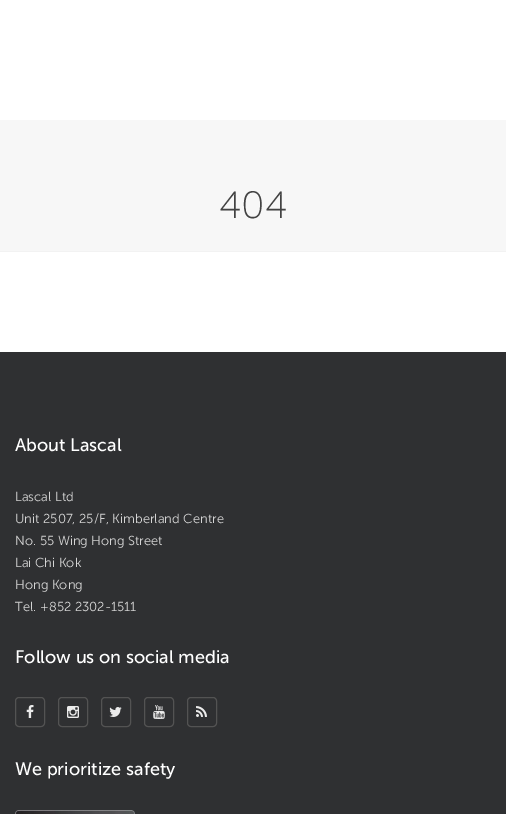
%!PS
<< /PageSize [506 814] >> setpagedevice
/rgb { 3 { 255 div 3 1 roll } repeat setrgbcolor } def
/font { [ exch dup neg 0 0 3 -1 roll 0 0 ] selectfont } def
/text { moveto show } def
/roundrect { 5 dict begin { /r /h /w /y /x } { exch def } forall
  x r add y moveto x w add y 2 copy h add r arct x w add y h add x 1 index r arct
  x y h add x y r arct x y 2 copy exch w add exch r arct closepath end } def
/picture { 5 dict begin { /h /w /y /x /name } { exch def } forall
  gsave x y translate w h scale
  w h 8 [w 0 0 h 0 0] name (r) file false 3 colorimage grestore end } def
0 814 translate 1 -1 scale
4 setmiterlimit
255 255 255 rgb
0 0 506 814 rectfill
247 247 247 rgb
0 120 506 131 rectfill
242 242 242 rgb
0 251 506 1 rectfill
47 48 50 rgb
0 352 506 462 rectfill
83 83 83 rgb
15.5 697.5 29 29 3.5 roundrect stroke
(img_01.rgb) 26 705 8 13 picture
58.5 697.5 29 29 3.5 roundrect stroke
(img_02.rgb) 67 706 12 12 picture
101.5 697.5 29 29 3.5 roundrect stroke
(img_03.rgb) 109 707 13 10 picture
144.5 697.5 29 29 3.5 roundrect stroke
(img_04.rgb) 153 705 12 14 picture
187.5 697.5 29 29 3.5 roundrect stroke
(img_05.rgb) 196 706 11 11 picture
(img_06.rgb) 15 810 120 4 picture
/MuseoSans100-Light 38 font
67 67 67 rgb
(404) 219 218 text
/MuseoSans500-Regular 18 font
255 255 255 rgb
(About Lascal) 15 451 text
/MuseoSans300-Light 13 font
212 212 212 rgb
(Lascal Ltd) 15 501 text
(Unit 2507, 25/F, Kimberland Centre) 15 523 text
(No. 55 Wing Hong Street) 15 545 text
(Lai Chi Kok) 15 567 text
(Hong Kong) 15 589 text
(Tel. +852 2302-1511) 15 611 text
/MuseoSans500-Regular 18 font
255 255 255 rgb
(Follow us on social media) 15 663 text
(We prioritize safety) 15 775 text
showpage
